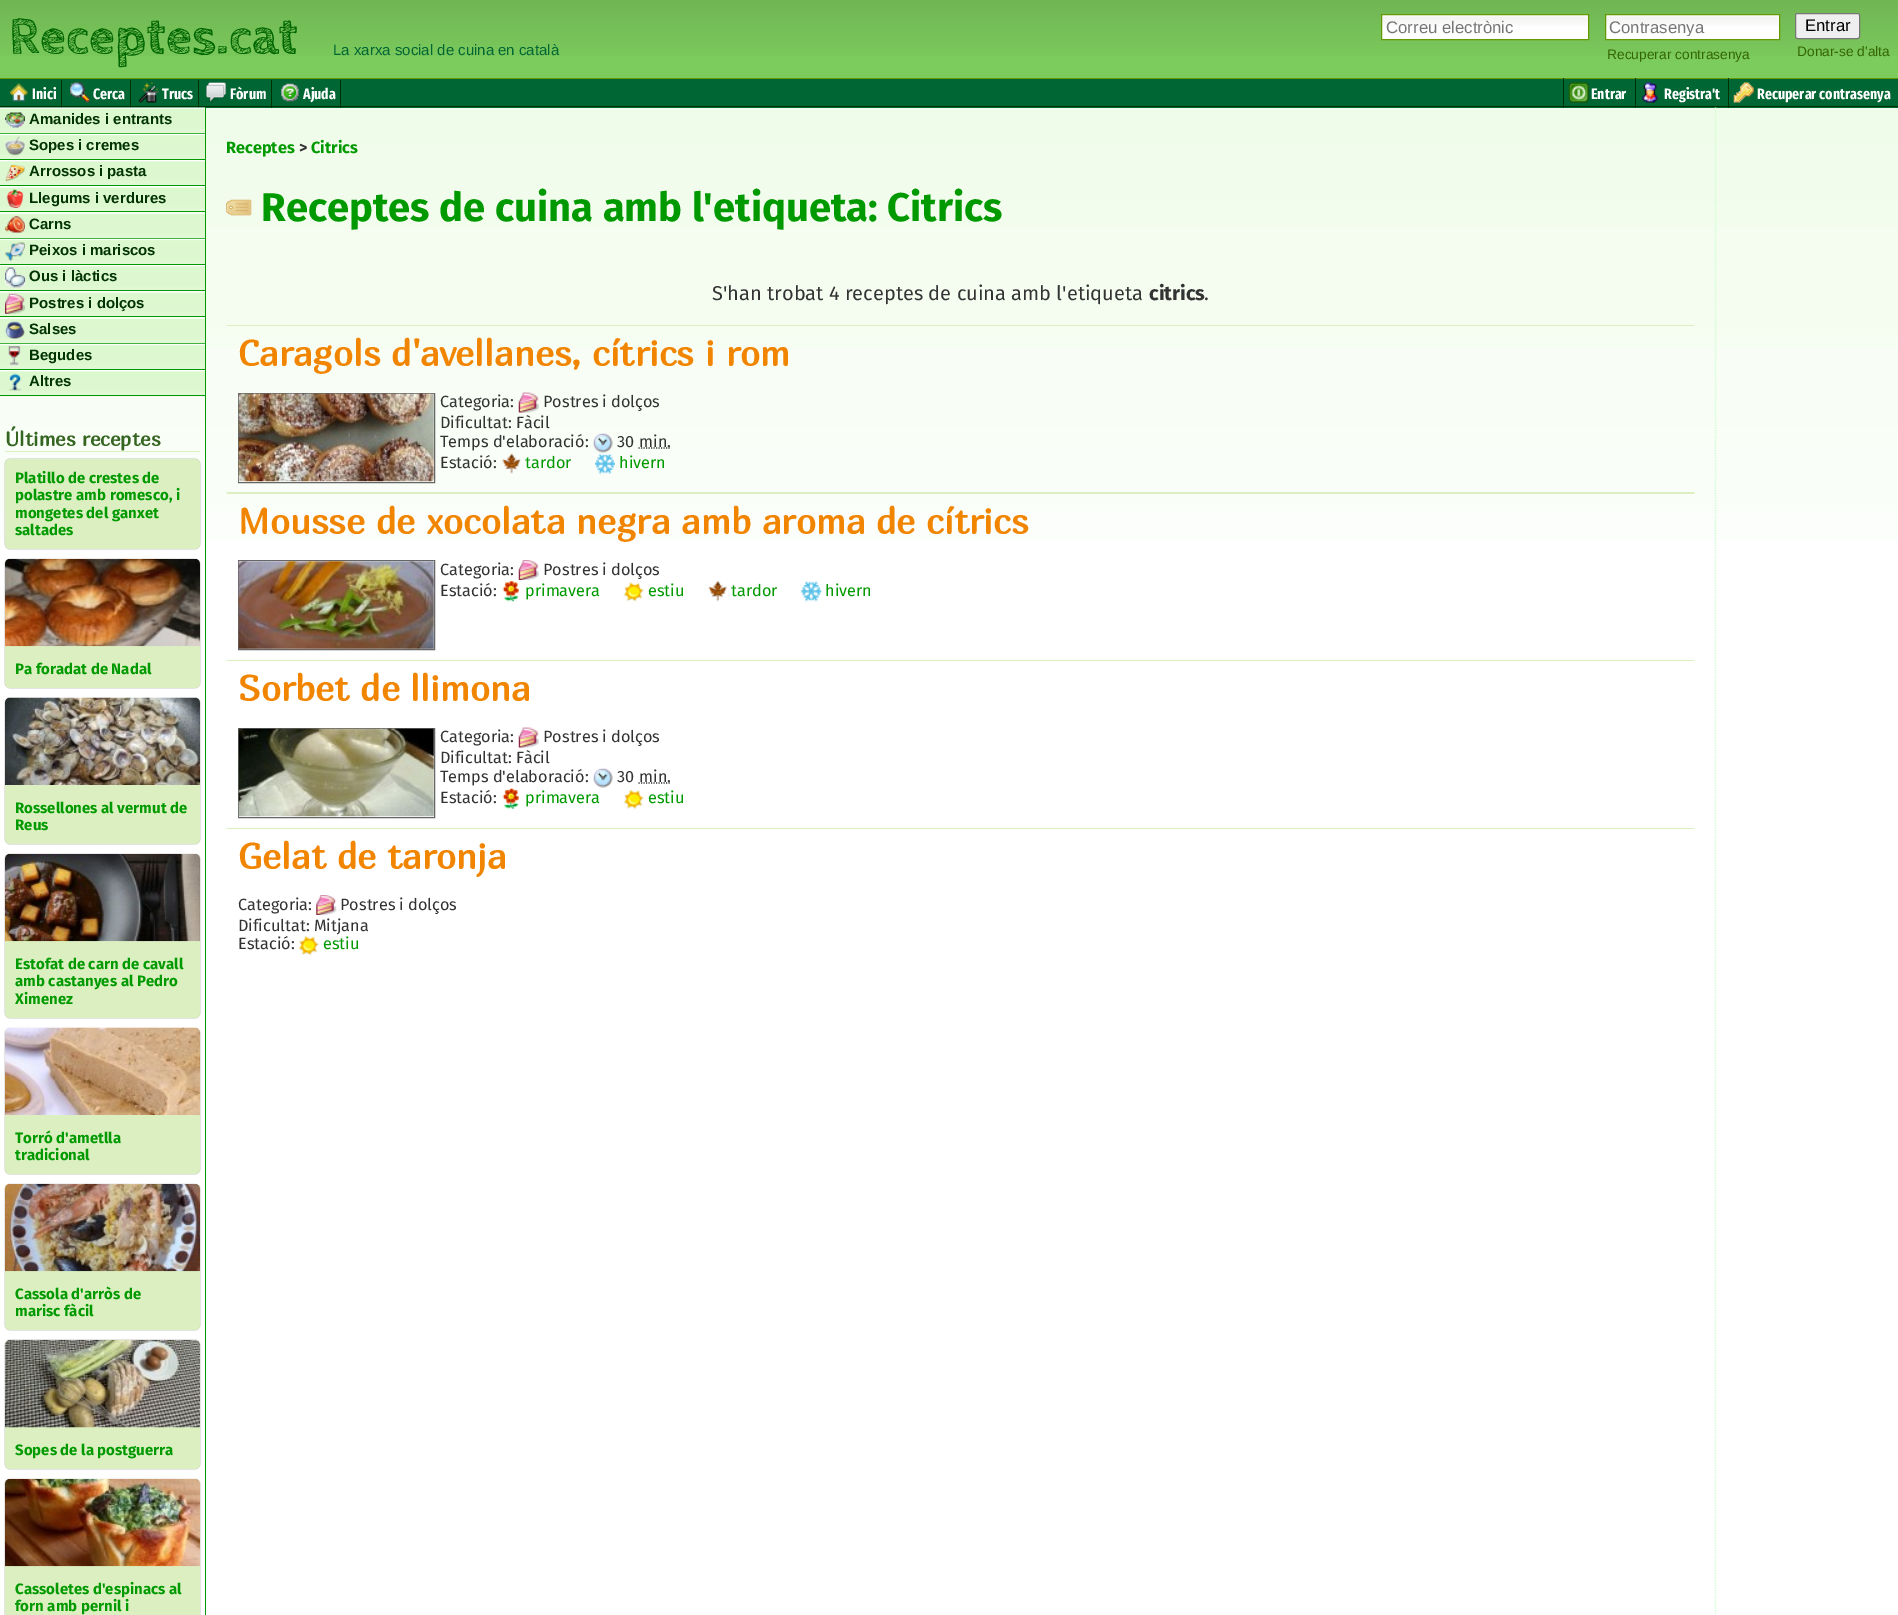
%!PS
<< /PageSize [1898 1615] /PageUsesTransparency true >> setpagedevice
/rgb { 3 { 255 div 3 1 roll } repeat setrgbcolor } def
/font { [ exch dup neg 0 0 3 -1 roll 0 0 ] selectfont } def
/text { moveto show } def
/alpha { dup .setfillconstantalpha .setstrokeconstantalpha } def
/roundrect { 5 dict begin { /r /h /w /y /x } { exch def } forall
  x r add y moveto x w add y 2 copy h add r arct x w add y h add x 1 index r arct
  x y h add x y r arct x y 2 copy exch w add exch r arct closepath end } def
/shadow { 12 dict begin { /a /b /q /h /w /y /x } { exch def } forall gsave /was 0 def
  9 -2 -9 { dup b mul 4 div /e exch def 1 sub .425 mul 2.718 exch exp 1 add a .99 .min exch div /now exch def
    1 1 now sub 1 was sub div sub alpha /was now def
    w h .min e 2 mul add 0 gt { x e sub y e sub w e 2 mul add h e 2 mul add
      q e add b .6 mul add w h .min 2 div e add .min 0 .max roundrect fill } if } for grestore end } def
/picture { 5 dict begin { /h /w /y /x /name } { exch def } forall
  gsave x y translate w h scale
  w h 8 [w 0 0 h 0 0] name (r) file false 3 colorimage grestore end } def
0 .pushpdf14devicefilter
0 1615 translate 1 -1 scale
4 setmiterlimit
255 255 255 rgb
0 0 1898 1615 rectfill
(img_01.rgb) 0 108 1898 432 picture
124 204 93 rgb
0 56 1898 22 rectfill
(img_02.rgb) 0 0 1898 56 picture
102 153 0 rgb
0 78 1898 1 rectfill
255 255 255 rgb
1382 15 206 24 rectfill
(img_03.rgb) 1382 16 206 10 picture
102 153 0 rgb
1381.5 14.5 207 25 rectstroke
255 255 255 rgb
1606 15 173 24 rectfill
(img_04.rgb) 1606 16 173 10 picture
102 153 0 rgb
1605.5 14.5 174 25 rectstroke
239 239 239 rgb
1795.5 13.5 64 25 2 roundrect gsave fill grestore
118 118 118 rgb
stroke
0 102 51 rgb
0 79 1898 29 rectfill
0 51 0 rgb
0 106 1898 1 rectfill
(img_05.rgb) 9 83 19 19 picture
61 80 1 28 rectfill
(img_06.rgb) 70 82 20 21 picture
130 80 1 28 rectfill
(img_07.rgb) 138 82 21 21 picture
198 80 1 28 rectfill
(img_08.rgb) 206 82 21 20 picture
271 80 1 28 rectfill
(img_09.rgb) 281 83 18 19 picture
340 80 1 28 rectfill
(img_10.rgb) 1568 82 21 21 picture
1563 78 1 30 rectfill
1635 78 1 30 rectfill
(img_11.rgb) 1642 82 16 21 picture
1728 78 1 30 rectfill
(img_12.rgb) 1733 82 21 21 picture
0 153 0 rgb
205 108 1 1507 rectfill
(img_13.rgb) 0 107 205 26 picture
0 133 205 1 rectfill
(img_14.rgb) 5 112 20 16 picture
(img_15.rgb) 0 133 205 26 picture
0 159 205 1 rectfill
(img_16.rgb) 5 136 20 20 picture
255 255 255 rgb
0 160 205 1 rectfill
(img_17.rgb) 0 161 205 26 picture
0 153 0 rgb
0 185 205 1 rectfill
(img_18.rgb) 5 164 20 18 picture
(img_19.rgb) 0 186 205 27 picture
0 211 205 1 rectfill
(img_20.rgb) 6 188 18 21 picture
(img_21.rgb) 0 212 205 26 picture
0 238 205 1 rectfill
(img_22.rgb) 5 216 20 18 picture
(img_15.rgb) 0 238 205 26 picture
0 264 205 1 rectfill
(img_23.rgb) 5 242 20 20 picture
255 255 255 rgb
0 265 205 1 rectfill
(img_24.rgb) 0 266 205 26 picture
0 153 0 rgb
0 290 205 1 rectfill
(img_25.rgb) 5 267 20 21 picture
(img_26.rgb) 0 291 205 27 picture
0 316 205 1 rectfill
(img_27.rgb) 5 293 20 21 picture
(img_21.rgb) 0 317 205 26 picture
0 343 205 1 rectfill
(img_28.rgb) 5 321 20 18 picture
(img_29.rgb) 0 343 205 26 picture
0 369 205 1 rectfill
(img_30.rgb) 8 346 13 20 picture
255 255 255 rgb
0 370 205 1 rectfill
(img_31.rgb) 0 371 205 26 picture
0 153 0 rgb
0 395 205 1 rectfill
(img_32.rgb) 9 373 13 18 picture
219 239 193 rgb
5 451 195 1 rectfill
153 153 153 rgb
5 459 195 90 5 0.5 1 shadow
219 239 193 rgb
5 459 195 90 5 roundrect fill
153 153 153 rgb
5 559 195 129 5 0.5 1 shadow
219 239 193 rgb
5 559 195 129 5 roundrect fill
(img_33.rgb) 5 558 195 89 picture
153 153 153 rgb
5 698 195 146 5 0.5 1 shadow
219 239 193 rgb
5 698 195 146 5 roundrect fill
(img_34.rgb) 5 697 195 88 picture
153 153 153 rgb
5 854 195 164 5 0.5 1 shadow
219 239 193 rgb
5 854 195 164 5 roundrect fill
(img_35.rgb) 5 853 195 89 picture
153 153 153 rgb
5 1028 195 146 5 0.5 1 shadow
219 239 193 rgb
5 1028 195 146 5 roundrect fill
(img_36.rgb) 5 1027 195 88 picture
153 153 153 rgb
5 1184 195 146 5 0.5 1 shadow
219 239 193 rgb
5 1184 195 146 5 roundrect fill
(img_37.rgb) 5 1183 195 89 picture
153 153 153 rgb
5 1340 195 129 5 0.5 1 shadow
219 239 193 rgb
5 1340 195 129 5 roundrect fill
(img_38.rgb) 5 1340 195 88 picture
153 153 153 rgb
5 1479 195 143 5 0.5 1 shadow
219 239 193 rgb
5 1479 195 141 5 roundrect fill
(img_39.rgb) 5 1478 195 89 picture
(img_40.rgb) 226 199 26 17 picture
226 325 moveto 1469 0 rlineto -1 1 rlineto -1466 0 rlineto closepath fill
102 102 102 rgb
238.5 393.5 196 89 rectstroke
(img_41.rgb) 238 393 196 89 picture
(img_42.rgb) 518 392 21 21 picture
(img_43.rgb) 593 433 20 20 picture
51 51 51 rgb
1.2 setlinewidth
[1.25 1.25] 0 setdash
638.5 448 moveto 32 0 rlineto stroke
(img_44.rgb) 502 453 19 21 picture
(img_45.rgb) 595 453 20 21 picture
219 239 193 rgb
226 492 moveto 1469 0 rlineto -1 2 rlineto -1466 0 rlineto closepath fill
102 102 102 rgb
1 setlinewidth
[] 0 setdash
238.5 560.5 196 89 rectstroke
(img_46.rgb) 238 561 196 88 picture
(img_47.rgb) 518 560 21 20 picture
(img_48.rgb) 502 581 18 21 picture
(img_49.rgb) 623 582 21 20 picture
(img_50.rgb) 708 581 19 21 picture
(img_51.rgb) 801 581 21 21 picture
219 239 193 rgb
226 660 moveto 1469 0 rlineto -1 1 rlineto -1466 0 rlineto closepath fill
102 102 102 rgb
238.5 728.5 196 89 rectstroke
(img_52.rgb) 238 728 196 89 picture
(img_53.rgb) 518 727 21 21 picture
(img_54.rgb) 593 768 20 20 picture
51 51 51 rgb
1.2 setlinewidth
[1.25 1.25] 0 setdash
638.5 783 moveto 32 0 rlineto stroke
(img_55.rgb) 502 788 18 21 picture
(img_56.rgb) 623 789 21 20 picture
219 239 193 rgb
226 828 moveto 1469 0 rlineto -1 1 rlineto -1466 0 rlineto closepath fill
(img_57.rgb) 316 895 21 20 picture
(img_58.rgb) 298 936 21 19 picture
204 255 204 rgb
1715.5 107.5 moveto 0 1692.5 rlineto stroke
/CabinSketch-Bold 52.5 font
0 102 0 rgb
(Receptes.cat) 9 53 text
/LiberationSans-Regular 15 font
0 102 51 rgb
(La xarxa social de cuina en català) 333 55 text
/LiberationSans-Regular 16.75 font
117 117 117 rgb
(Correu electrònic) 1386 33 text
gsave
1609 18 167 18 rectclip
(Contrasenya) 1609 33 text
grestore
/LiberationSans-Regular 13.75 font
51 102 0 rgb
(Recuperar contrasenya) 1607 59 text
/LiberationSans-Regular 16.75 font
0 0 0 rgb
(Entrar) 1805 31 text
/LiberationSans-Regular 13.75 font
51 102 0 rgb
(Donar-se d'alta) 1797 56 text
/FiraSansExtraCondensed-Bold 15 font
255 255 255 rgb
(Inici) 32 99 text
(Cerca) 93 99 text
(Trucs) 162 99 text
(Fòrum) 230 99 text
(Ajuda) 303 99 text
(Entrar) 1591 99 text
(Registra't) 1664 99 text
(Recuperar contrasenya) 1757 99 text
/LiberationSans-Bold 15 font
0 51 0 rgb
(Amanides i entrants) 29 124 text
(Sopes i cremes) 29 150 text
(Arrossos i pasta) 29 176 text
(Llegums i verdures) 29 203 text
(Carns) 29 229 text
(Peixos i mariscos) 29 255 text
(Ous i làctics) 29 281 text
(Postres i dolços) 29 308 text
(Salses) 29 334 text
(Begudes) 29 360 text
(Altres) 29 386 text
/Marmelad-Bold 20 font
53 101 32 rgb
(Últimes receptes) 5 446 text
/FiraSans-Bold 15 font
0 153 0 rgb
(Platillo de crestes de) 15 483 text
(polastre amb romesco, i) 15 500 text
(mongetes del ganxet) 15 518 text
(saltades) 15 535 text
(Pa foradat de Nadal) 15 674 text
(Rossellones al vermut de) 15 813 text
(Reus) 15 830 text
(Estofat de carn de cavall) 15 969 text
(amb castanyes al Pedro) 15 986 text
(Ximenez) 15 1004 text
(Torró d'ametlla) 15 1143 text
(tradicional) 15 1160 text
(Cassola d'arròs de) 15 1299 text
(marisc fàcil) 15 1316 text
(Sopes de la postguerra) 15 1455 text
(Cassoletes d'espinacs al) 15 1594 text
(forn amb pernil i) 15 1611 text
/FiraSans-Bold 16.25 font
(Receptes) 226 153 text
51 51 51 rgb
(>) 299 153 text
0 153 0 rgb
(Citrics) 311 153 text
/FiraSans-Bold 40 font
(Receptes de cuina amb l'etiqueta: Citrics) 261 221 text
/FiraSans-Regular 20 font
51 51 51 rgb
(S'han trobat 4 receptes de cuina amb l'etiqueta) 712 300 text
/FiraSans-Bold 20 font
(citrics) 1149 300 text
/FiraSans-Regular 20 font
(.) 1204 300 text
/Marmelad-Bold 36 font
242 133 0 rgb
(Caragols d'avellanes, cítrics i rom) 238 366 text
/FiraSans-Regular 16.25 font
51 51 51 rgb
(Categoria:) 440 407 text
(Postres i dolços) 543 407 text
(Dificultat: Fàcil) 440 428 text
(Temps d'elaboració:) 440 447 text
(30) 617 447 text
(min.) 639 447 text
(Estació:) 440 468 text
0 153 0 rgb
(tardor) 525 468 text
(hivern) 619 468 text
/Marmelad-Bold 36 font
242 133 0 rgb
(Mousse de xocolata negra amb aroma de cítrics) 238 534 text
/FiraSans-Regular 16.25 font
51 51 51 rgb
(Categoria:) 440 575 text
(Postres i dolços) 543 575 text
(Estació:) 440 596 text
0 153 0 rgb
(primavera) 525 596 text
(estiu) 648 596 text
(tardor) 731 596 text
(hivern) 825 596 text
/Marmelad-Bold 36 font
242 133 0 rgb
(Sorbet de llimona) 238 701 text
/FiraSans-Regular 16.25 font
51 51 51 rgb
(Categoria:) 440 742 text
(Postres i dolços) 543 742 text
(Dificultat: Fàcil) 440 763 text
(Temps d'elaboració:) 440 782 text
(30) 617 782 text
(min.) 639 782 text
(Estació:) 440 803 text
0 153 0 rgb
(primavera) 525 803 text
(estiu) 648 803 text
/Marmelad-Bold 36 font
242 133 0 rgb
(Gelat de taronja) 238 869 text
/FiraSans-Regular 16.25 font
51 51 51 rgb
(Categoria:) 238 910 text
(Postres i dolços) 340 910 text
(Dificultat: Mitjana) 238 931 text
(Estació:) 238 949 text
0 153 0 rgb
(estiu) 323 949 text
.poppdf14devicefilter showpage
